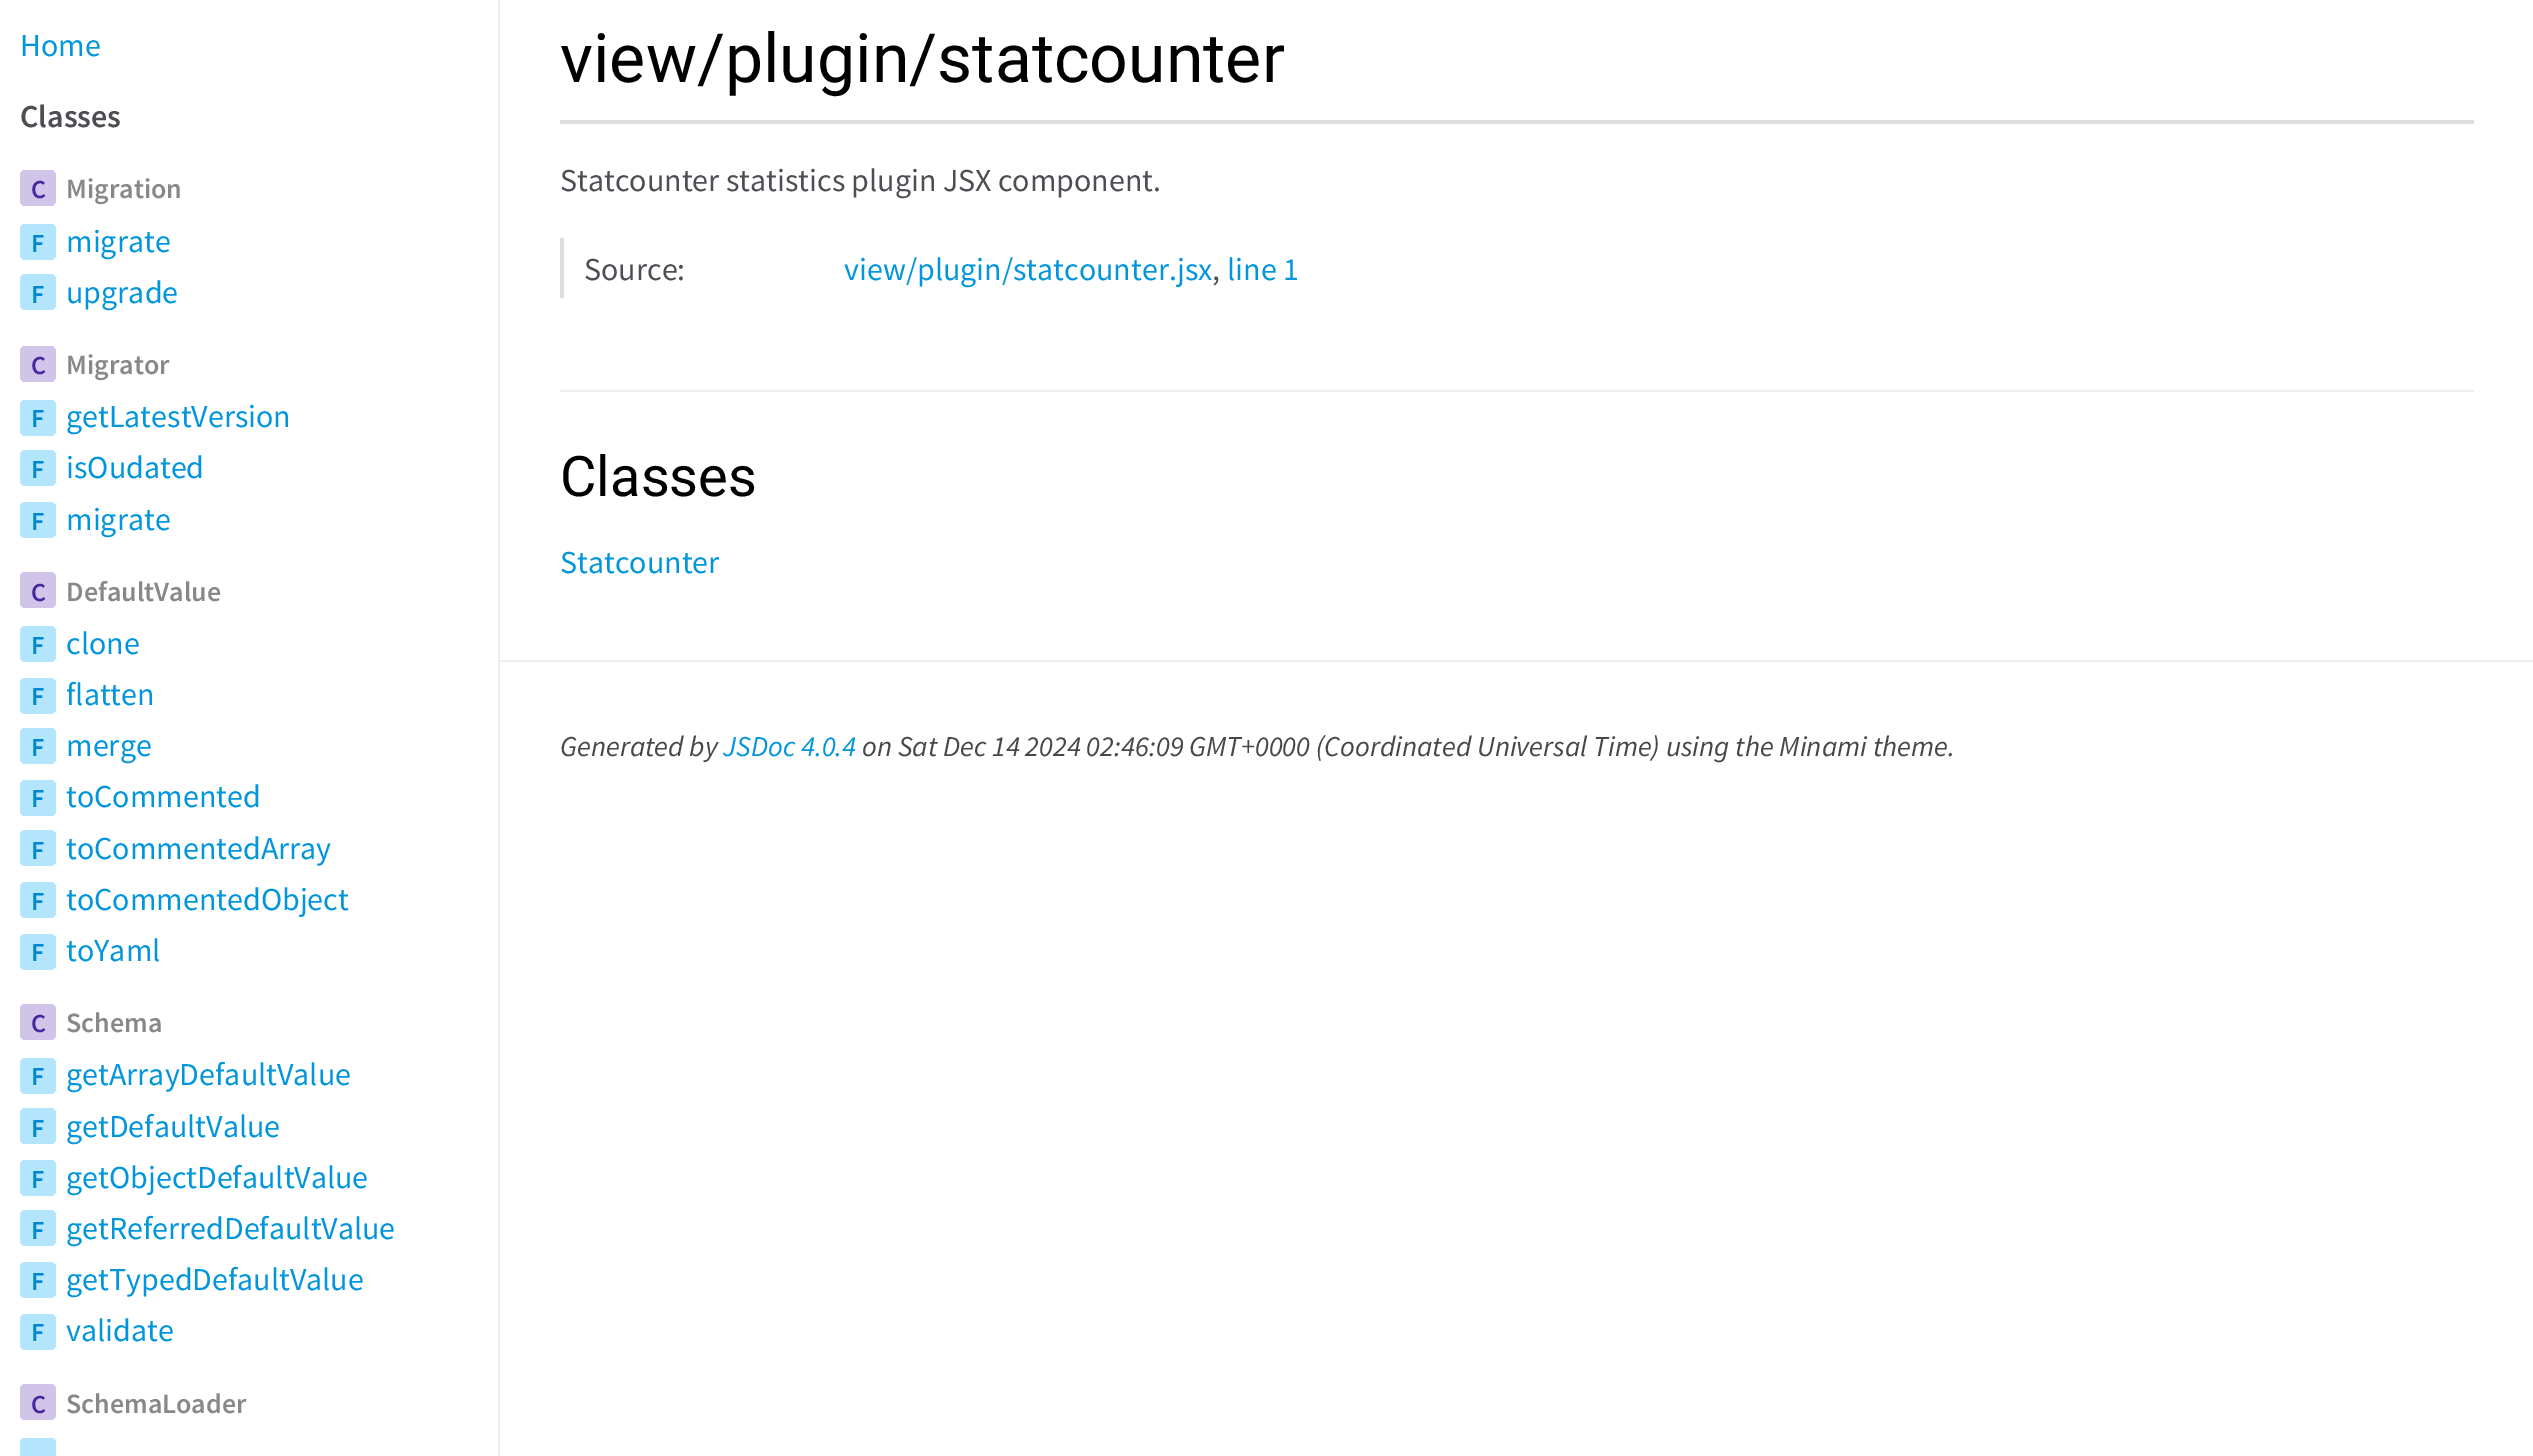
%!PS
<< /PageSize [2533 1456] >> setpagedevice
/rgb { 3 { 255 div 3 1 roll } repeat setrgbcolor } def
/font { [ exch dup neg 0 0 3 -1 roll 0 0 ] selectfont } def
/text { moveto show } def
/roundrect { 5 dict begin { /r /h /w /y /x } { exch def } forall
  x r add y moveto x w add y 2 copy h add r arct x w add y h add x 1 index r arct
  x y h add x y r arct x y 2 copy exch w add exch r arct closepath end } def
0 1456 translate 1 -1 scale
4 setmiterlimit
255 255 255 rgb
0 0 2533 1456 rectfill
238 238 238 rgb
498 0 2 1456 rectfill
209 196 233 rgb
20 170 36 36 5 roundrect fill
179 229 252 rgb
20 224 36 36 5 roundrect fill
20 274 36 36 5 roundrect fill
209 196 233 rgb
20 346 36 36 5 roundrect fill
179 229 252 rgb
20 400 36 36 5 roundrect fill
20 450 36 36 5 roundrect fill
20 502 36 36 5 roundrect fill
209 196 233 rgb
20 572 36 36 5 roundrect fill
179 229 252 rgb
20 626 36 36 5 roundrect fill
20 678 36 36 5 roundrect fill
20 728 36 36 5 roundrect fill
20 780 36 36 5 roundrect fill
20 830 36 36 5 roundrect fill
20 882 36 36 5 roundrect fill
20 934 36 36 5 roundrect fill
209 196 233 rgb
20 1004 36 36 5 roundrect fill
179 229 252 rgb
20 1058 36 36 5 roundrect fill
20 1108 36 36 5 roundrect fill
20 1160 36 36 5 roundrect fill
20 1210 36 36 5 roundrect fill
20 1262 36 36 5 roundrect fill
20 1314 36 36 5 roundrect fill
209 196 233 rgb
20 1384 36 36 5 roundrect fill
179 229 252 rgb
25 1438 moveto 26 0 rlineto 3 0 5 2 5 5 rcurveto 0 13 rlineto -36 0 rlineto 0 -13 rlineto 0 -3 2 -5 5 -5 rcurveto closepath fill
221 221 221 rgb
560 120 1914 4 rectfill
238 238 238 rgb
560 390 1914 2 rectfill
221 221 221 rgb
560 238 4 60 rectfill
238 238 238 rgb
500 660 2033 2 rectfill
/SourceSansPro-Regular 32 font
0 149 221 rgb
(Home) 20 56 text
/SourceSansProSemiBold-SemiBold 32 font
77 78 83 rgb
(Classes) 20 127 text
/SourceSansProSemiBold-SemiBold 26 font
69 39 160 rgb
(C) 31 198 text
/SourceSansProSemiBold-SemiBold 28 font
136 136 136 rgb
(Migration) 66 198 text
/SourceSansProSemiBold-SemiBold 26 font
2 136 209 rgb
(F) 31 252 text
/SourceSansPro-Regular 32 font
0 149 221 rgb
(migrate) 66 252 text
/SourceSansProSemiBold-SemiBold 26 font
2 136 209 rgb
(F) 31 303 text
/SourceSansPro-Regular 32 font
0 149 221 rgb
(upgrade) 66 303 text
/SourceSansProSemiBold-SemiBold 26 font
69 39 160 rgb
(C) 31 374 text
/SourceSansProSemiBold-SemiBold 28 font
136 136 136 rgb
(Migrator) 66 374 text
/SourceSansProSemiBold-SemiBold 26 font
2 136 209 rgb
(F) 31 427 text
/SourceSansPro-Regular 32 font
0 149 221 rgb
(getLatestVersion) 66 427 text
/SourceSansProSemiBold-SemiBold 26 font
2 136 209 rgb
(F) 31 478 text
/SourceSansPro-Regular 32 font
0 149 221 rgb
(isOudated) 66 478 text
/SourceSansProSemiBold-SemiBold 26 font
2 136 209 rgb
(F) 31 530 text
/SourceSansPro-Regular 32 font
0 149 221 rgb
(migrate) 66 530 text
/SourceSansProSemiBold-SemiBold 26 font
69 39 160 rgb
(C) 31 601 text
/SourceSansProSemiBold-SemiBold 28 font
136 136 136 rgb
(DefaultValue) 66 601 text
/SourceSansProSemiBold-SemiBold 26 font
2 136 209 rgb
(F) 31 654 text
/SourceSansPro-Regular 32 font
0 149 221 rgb
(clone) 66 654 text
/SourceSansProSemiBold-SemiBold 26 font
2 136 209 rgb
(F) 31 705 text
/SourceSansPro-Regular 32 font
0 149 221 rgb
(flatten) 66 705 text
/SourceSansProSemiBold-SemiBold 26 font
2 136 209 rgb
(F) 31 756 text
/SourceSansPro-Regular 32 font
0 149 221 rgb
(merge) 66 756 text
/SourceSansProSemiBold-SemiBold 26 font
2 136 209 rgb
(F) 31 807 text
/SourceSansPro-Regular 32 font
0 149 221 rgb
(toCommented) 66 807 text
/SourceSansProSemiBold-SemiBold 26 font
2 136 209 rgb
(F) 31 859 text
/SourceSansPro-Regular 32 font
0 149 221 rgb
(toCommentedArray) 66 859 text
/SourceSansProSemiBold-SemiBold 26 font
2 136 209 rgb
(F) 31 910 text
/SourceSansPro-Regular 32 font
0 149 221 rgb
(toCommentedObject) 66 910 text
/SourceSansProSemiBold-SemiBold 26 font
2 136 209 rgb
(F) 31 961 text
/SourceSansPro-Regular 32 font
0 149 221 rgb
(toYaml) 66 961 text
/SourceSansProSemiBold-SemiBold 26 font
69 39 160 rgb
(C) 31 1032 text
/SourceSansProSemiBold-SemiBold 28 font
136 136 136 rgb
(Schema) 66 1032 text
/SourceSansProSemiBold-SemiBold 26 font
2 136 209 rgb
(F) 31 1085 text
/SourceSansPro-Regular 32 font
0 149 221 rgb
(getArrayDefaultValue) 66 1085 text
/SourceSansProSemiBold-SemiBold 26 font
2 136 209 rgb
(F) 31 1137 text
/SourceSansPro-Regular 32 font
0 149 221 rgb
(getDefaultValue) 66 1137 text
/SourceSansProSemiBold-SemiBold 26 font
2 136 209 rgb
(F) 31 1188 text
/SourceSansPro-Regular 32 font
0 149 221 rgb
(getObjectDefaultValue) 66 1188 text
/SourceSansProSemiBold-SemiBold 26 font
2 136 209 rgb
(F) 31 1239 text
/SourceSansPro-Regular 32 font
0 149 221 rgb
(getReferredDefaultValue) 66 1239 text
/SourceSansProSemiBold-SemiBold 26 font
2 136 209 rgb
(F) 31 1290 text
/SourceSansPro-Regular 32 font
0 149 221 rgb
(getTypedDefaultValue) 66 1290 text
/SourceSansProSemiBold-SemiBold 26 font
2 136 209 rgb
(F) 31 1341 text
/SourceSansPro-Regular 32 font
0 149 221 rgb
(validate) 66 1341 text
/SourceSansProSemiBold-SemiBold 26 font
69 39 160 rgb
(C) 31 1413 text
/SourceSansProSemiBold-SemiBold 28 font
136 136 136 rgb
(SchemaLoader) 66 1413 text
/Roboto-Regular 68 font
0 0 0 rgb
(view/plugin/statcounter) 560 82 text
/SourceSansPro-Regular 32 font
77 78 83 rgb
(Statcounter statistics plugin JSX component.) 560 191 text
(Source:) 584 280 text
0 149 221 rgb
(view/plugin/statcounter.jsx) 844 280 text
77 78 83 rgb
(,) 1212 280 text
0 149 221 rgb
(line 1) 1227 280 text
/Roboto-Regular 56 font
0 0 0 rgb
(Classes) 560 496 text
/SourceSansPro-Regular 32 font
0 149 221 rgb
(Statcounter) 560 573 text
/SourceSansPro-Italic 28.8 font
71 71 71 rgb
(Generated by) 560 756 text
0 149 221 rgb
(JSDoc 4.0.4) 723 756 text
71 71 71 rgb
(on Sat Dec 14 2024 02:46:09 GMT+0000 \(Coordinated Universal Time\) using the Minami theme.) 862 756 text
showpage
